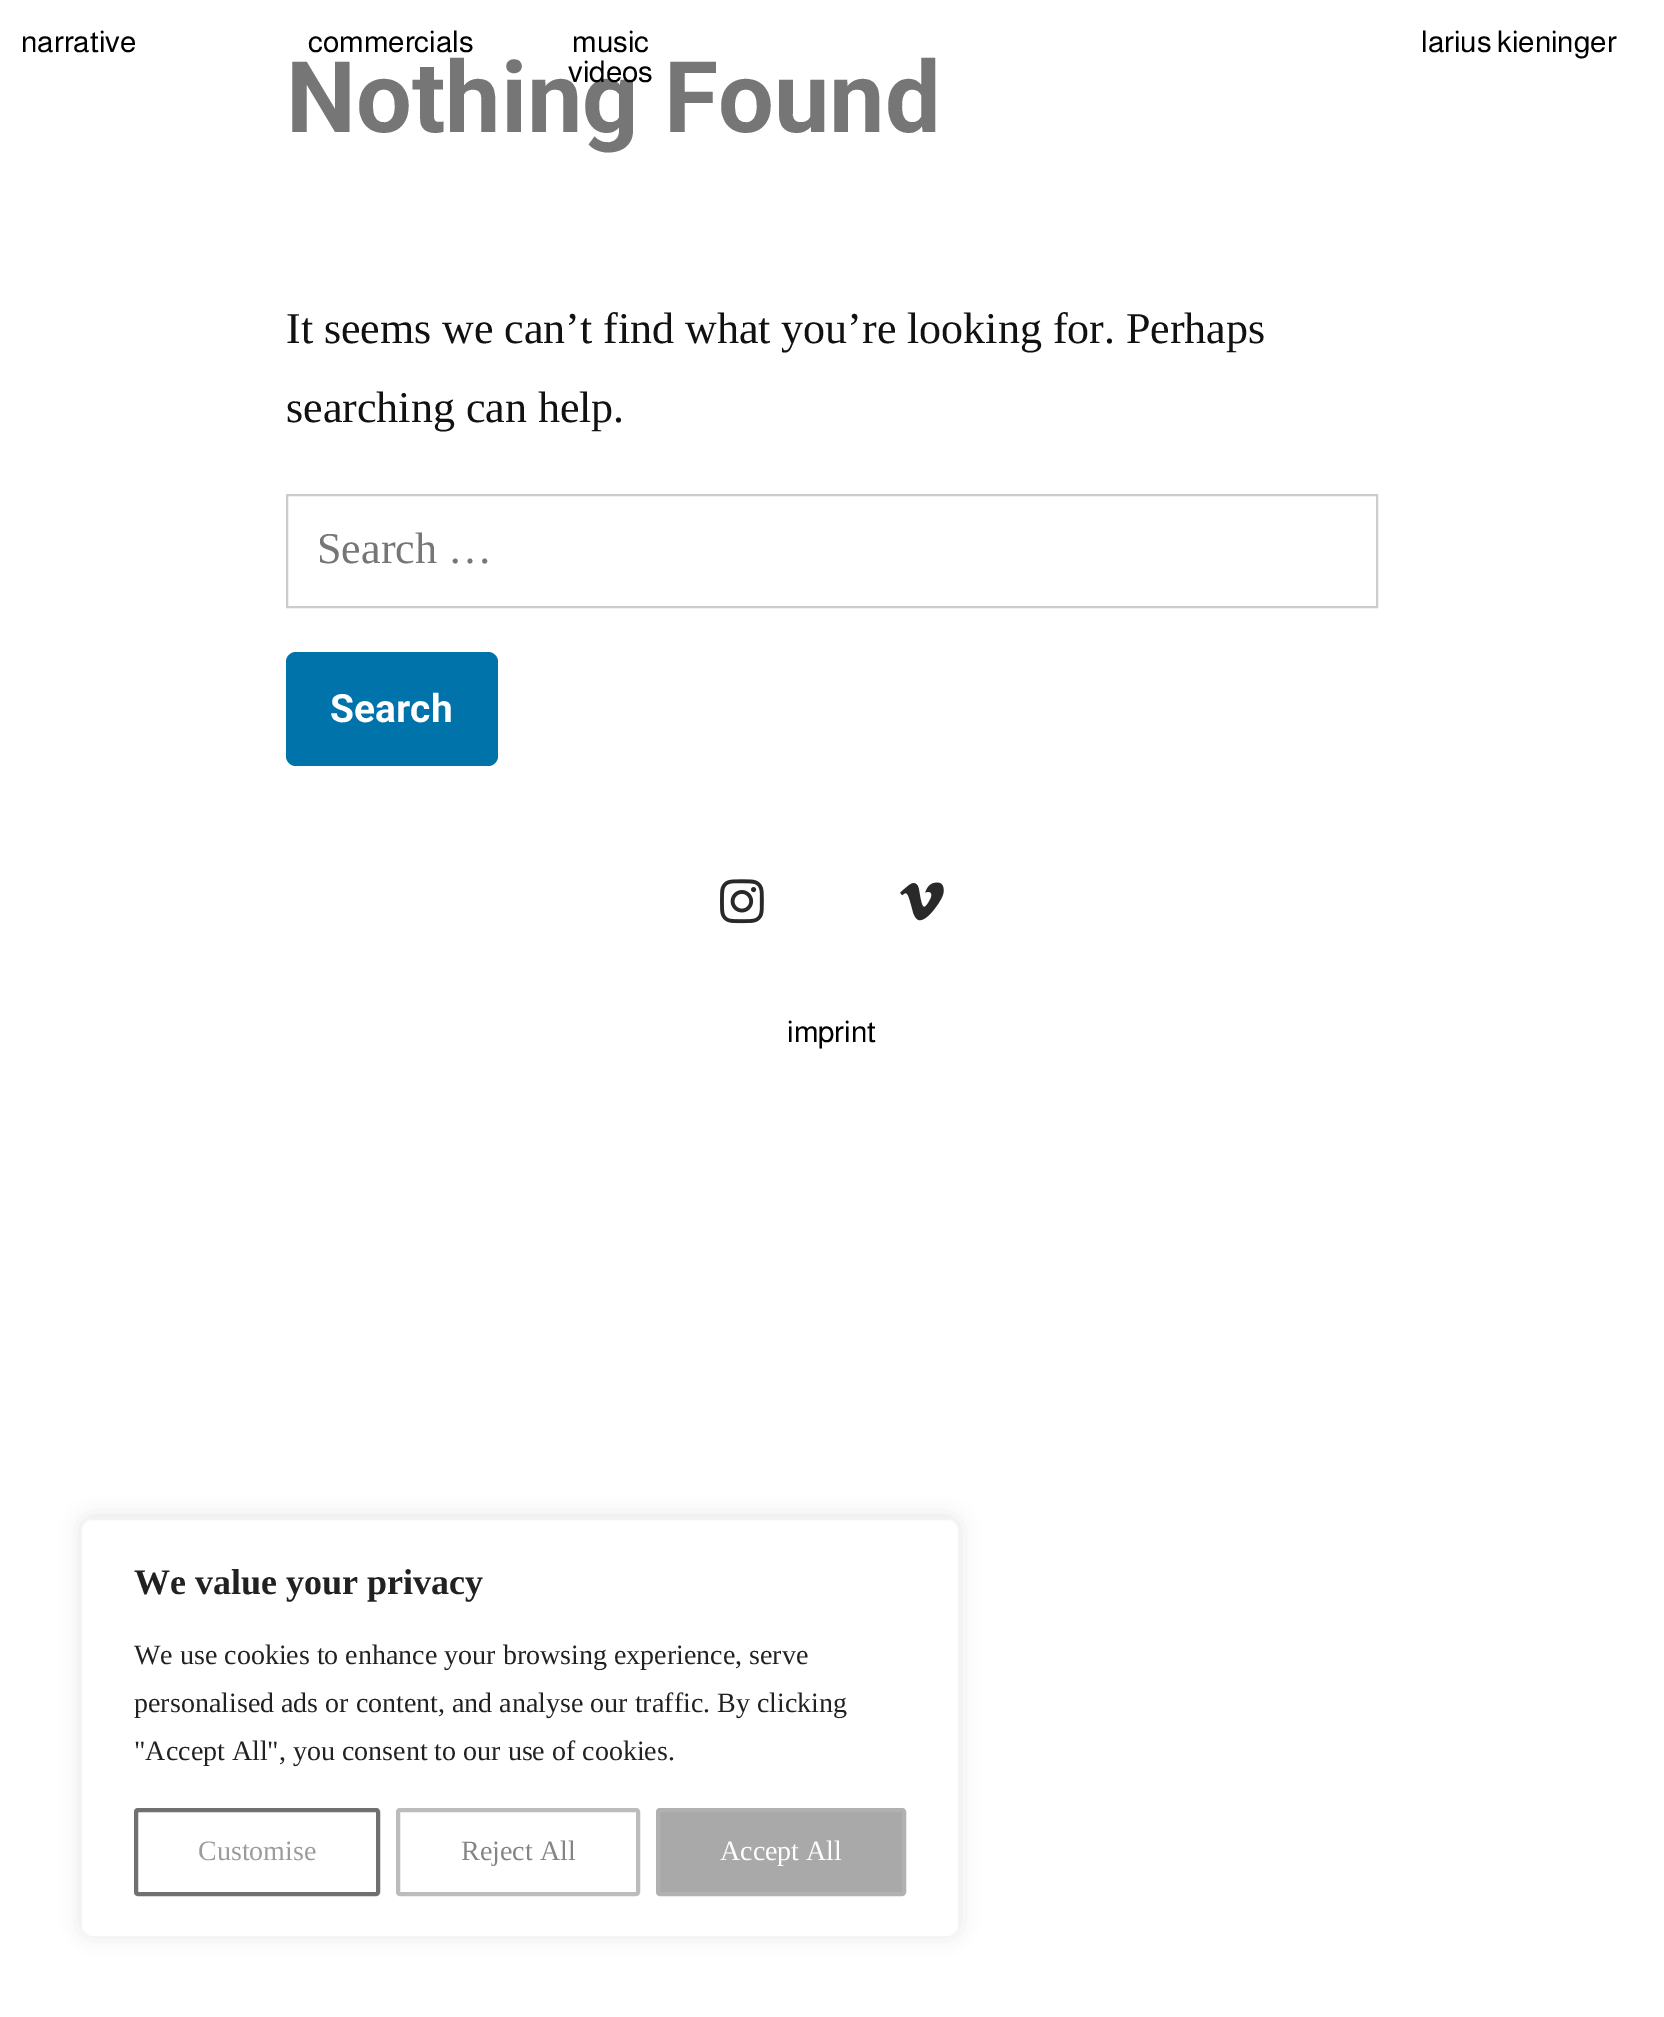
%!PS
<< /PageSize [1664 2017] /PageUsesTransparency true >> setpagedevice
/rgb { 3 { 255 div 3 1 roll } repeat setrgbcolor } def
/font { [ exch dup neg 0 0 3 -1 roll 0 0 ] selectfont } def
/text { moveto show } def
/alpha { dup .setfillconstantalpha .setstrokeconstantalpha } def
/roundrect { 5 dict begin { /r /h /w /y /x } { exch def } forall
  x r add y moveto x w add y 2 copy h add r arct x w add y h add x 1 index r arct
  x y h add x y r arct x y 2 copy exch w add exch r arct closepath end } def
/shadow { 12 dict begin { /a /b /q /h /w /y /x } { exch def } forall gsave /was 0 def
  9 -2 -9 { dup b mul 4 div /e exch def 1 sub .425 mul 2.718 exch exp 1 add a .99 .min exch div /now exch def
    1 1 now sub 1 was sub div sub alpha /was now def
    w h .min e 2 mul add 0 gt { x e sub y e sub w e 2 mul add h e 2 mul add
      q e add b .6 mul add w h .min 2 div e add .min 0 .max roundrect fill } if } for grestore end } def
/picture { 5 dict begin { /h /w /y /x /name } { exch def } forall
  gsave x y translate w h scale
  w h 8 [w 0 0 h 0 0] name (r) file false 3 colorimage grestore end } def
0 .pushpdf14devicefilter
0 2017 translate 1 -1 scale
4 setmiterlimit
255 255 255 rgb
0 0 1664 2017 rectfill
204 204 204 rgb
2 setlinewidth
287 495 1090 112 rectstroke
0 115 170 rgb
286 652 212 114 10 roundrect fill
(img_01.rgb) 720 879 44 45 picture
(img_02.rgb) 900 882 44 39 picture
172 171 171 rgb
80 1516 880 420 12 10 0.3 shadow
255 255 255 rgb
81 1519 878 418 11 roundrect gsave fill grestore
244 244 244 rgb
stroke
112 112 112 rgb
4 setlinewidth
136 1810 242 84 2 roundrect stroke
188 188 188 rgb
398 1810 240 84 2 roundrect stroke
169 169 169 rgb
658 1810 246 84 2 roundrect gsave fill grestore
176 177 177 rgb
stroke
/Almarai-Regular 30 font
0 0 0 rgb
(narrative) 21 52 text
(commercials) 308 52 text
(music) 572 52 text
(larius kieninger) 1421 52 text
/Roboto-Bold 99 font
118 118 118 rgb
(Nothing Found) 286 132 text
/Almarai-Regular 30 font
0 0 0 rgb
(videos) 568 82 text
/LiberationSerif-Regular 44 font
17 17 17 rgb
286 343 moveto -0.1 0 32 (It seems we can’t find what you’re looking for. Perhaps) widthshow
(searching can help.) 286 422 text
118 118 118 rgb
(Search …) 317 563 text
/Roboto-Bold 39 font
255 255 255 rgb
(Search) 330 722 text
/Almarai-Regular 30 font
0 0 0 rgb
(imprint) 787 1042 text
/LiberationSerif-Bold 36 font
33 33 33 rgb
(We value your privacy) 134 1594 text
/LiberationSerif-Regular 28 font
(We use cookies to enhance your browsing experience, serve) 134 1664 text
(personalised ads or content, and analyse our traffic. By clicking) 134 1712 text
("Accept All", you consent to our use of cookies.) 134 1760 text
155 155 155 rgb
(Customise) 198 1860 text
132 132 132 rgb
(Reject All) 461 1860 text
255 255 255 rgb
(Accept All) 720 1860 text
.poppdf14devicefilter showpage
